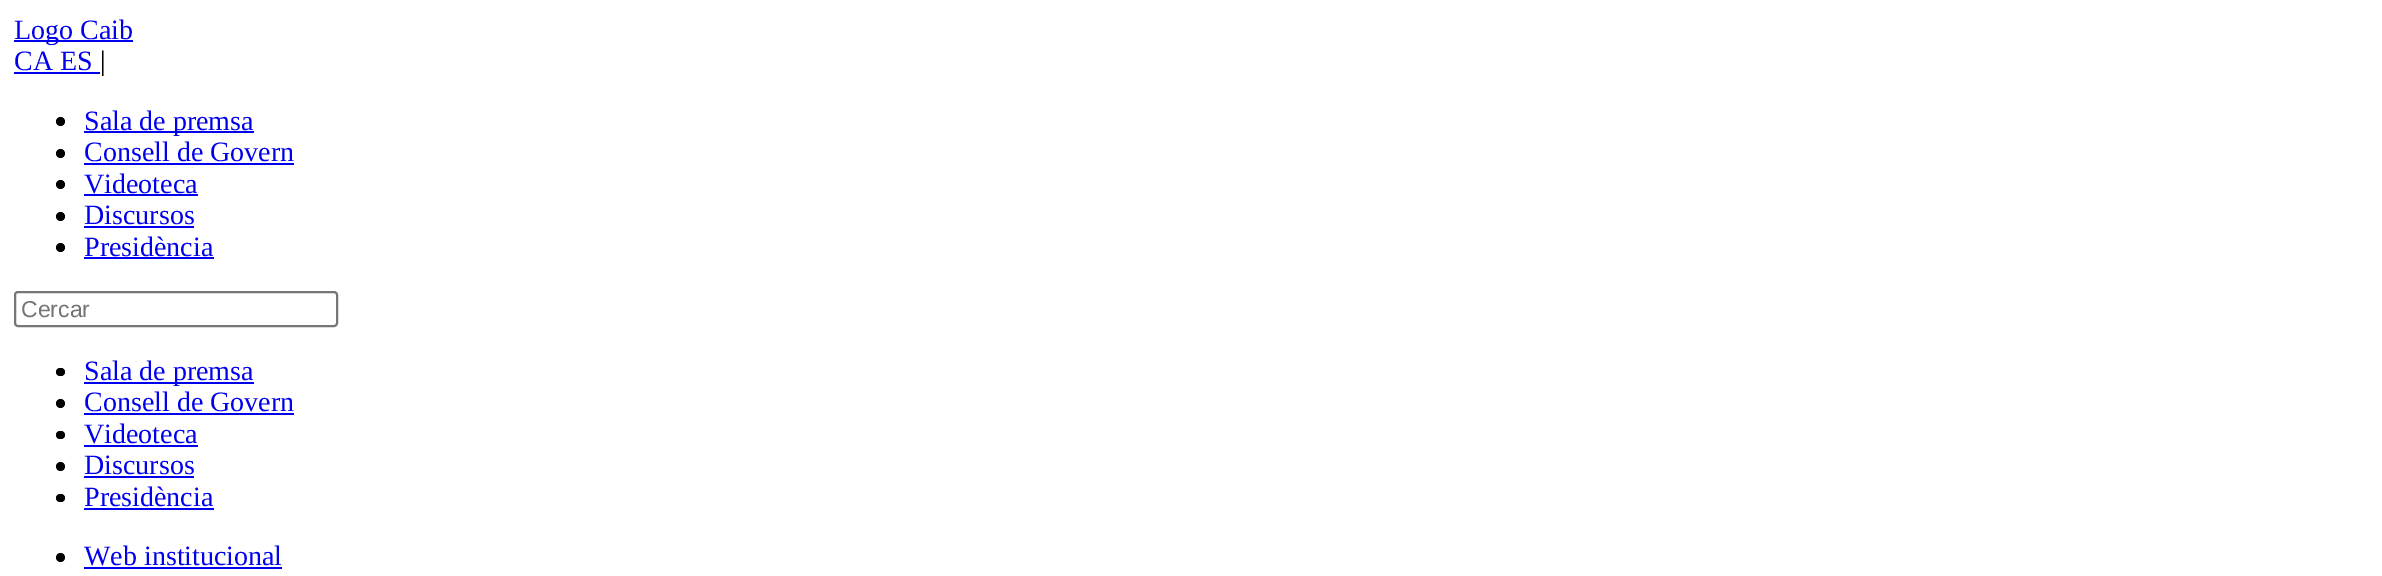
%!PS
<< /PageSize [2382 576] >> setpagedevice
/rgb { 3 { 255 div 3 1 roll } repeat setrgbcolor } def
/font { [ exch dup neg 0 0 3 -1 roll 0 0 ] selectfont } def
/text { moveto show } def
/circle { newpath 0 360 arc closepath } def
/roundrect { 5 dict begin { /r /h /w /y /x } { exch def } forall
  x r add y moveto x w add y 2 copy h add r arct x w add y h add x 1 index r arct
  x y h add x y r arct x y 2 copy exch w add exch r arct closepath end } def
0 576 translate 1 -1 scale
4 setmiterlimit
255 255 255 rgb
0 0 2382 576 rectfill
0 0 238 rgb
14 40 119 2 rectfill
14 72 86 2 rectfill
0 0 0 rgb
60.5 121.5 4.5 circle fill
0 0 238 rgb
84 131 170 2 rectfill
0 0 0 rgb
60.5 153.5 4.5 circle fill
0 0 238 rgb
84 163 210 2 rectfill
0 0 0 rgb
60.5 184.5 4.5 circle fill
0 0 238 rgb
84 194 114 2 rectfill
0 0 0 rgb
60.5 216.5 4.5 circle fill
0 0 238 rgb
84 226 110 2 rectfill
0 0 0 rgb
60.5 247.5 4.5 circle fill
0 0 238 rgb
84 257 130 2 rectfill
118 118 118 rgb
2 setlinewidth
15 292 322 34 3 roundrect stroke
0 0 0 rgb
56 368 9 8 4 roundrect fill
0 0 238 rgb
84 382 170 2 rectfill
0 0 0 rgb
60.5 403.5 4.5 circle fill
0 0 238 rgb
84 413 210 2 rectfill
0 0 0 rgb
56 431 9 8 4 roundrect fill
0 0 238 rgb
84 445 114 2 rectfill
0 0 0 rgb
60.5 466.5 4.5 circle fill
0 0 238 rgb
84 476 110 2 rectfill
0 0 0 rgb
56 494 9 8 4 roundrect fill
0 0 238 rgb
84 508 130 2 rectfill
0 0 0 rgb
60.5 557.5 4.5 circle fill
0 0 238 rgb
84 567 198 2 rectfill
/LiberationSerif-Regular 28 font
(Logo Caib) 14 39 text
(CA ES) 14 70 text
0 0 0 rgb
(|) 100 70 text
0 0 238 rgb
(Sala de premsa) 84 130 text
(Consell de Govern) 84 161 text
(Videoteca) 84 193 text
(Discursos) 84 224 text
(Presidència) 84 256 text
/LiberationSans-Regular 23 font
117 117 117 rgb
(Cercar) 21 317 text
/LiberationSerif-Regular 28 font
0 0 238 rgb
(Sala de premsa) 84 380 text
(Consell de Govern) 84 411 text
(Videoteca) 84 443 text
(Discursos) 84 474 text
(Presidència) 84 506 text
(Web institucional) 84 565 text
showpage
